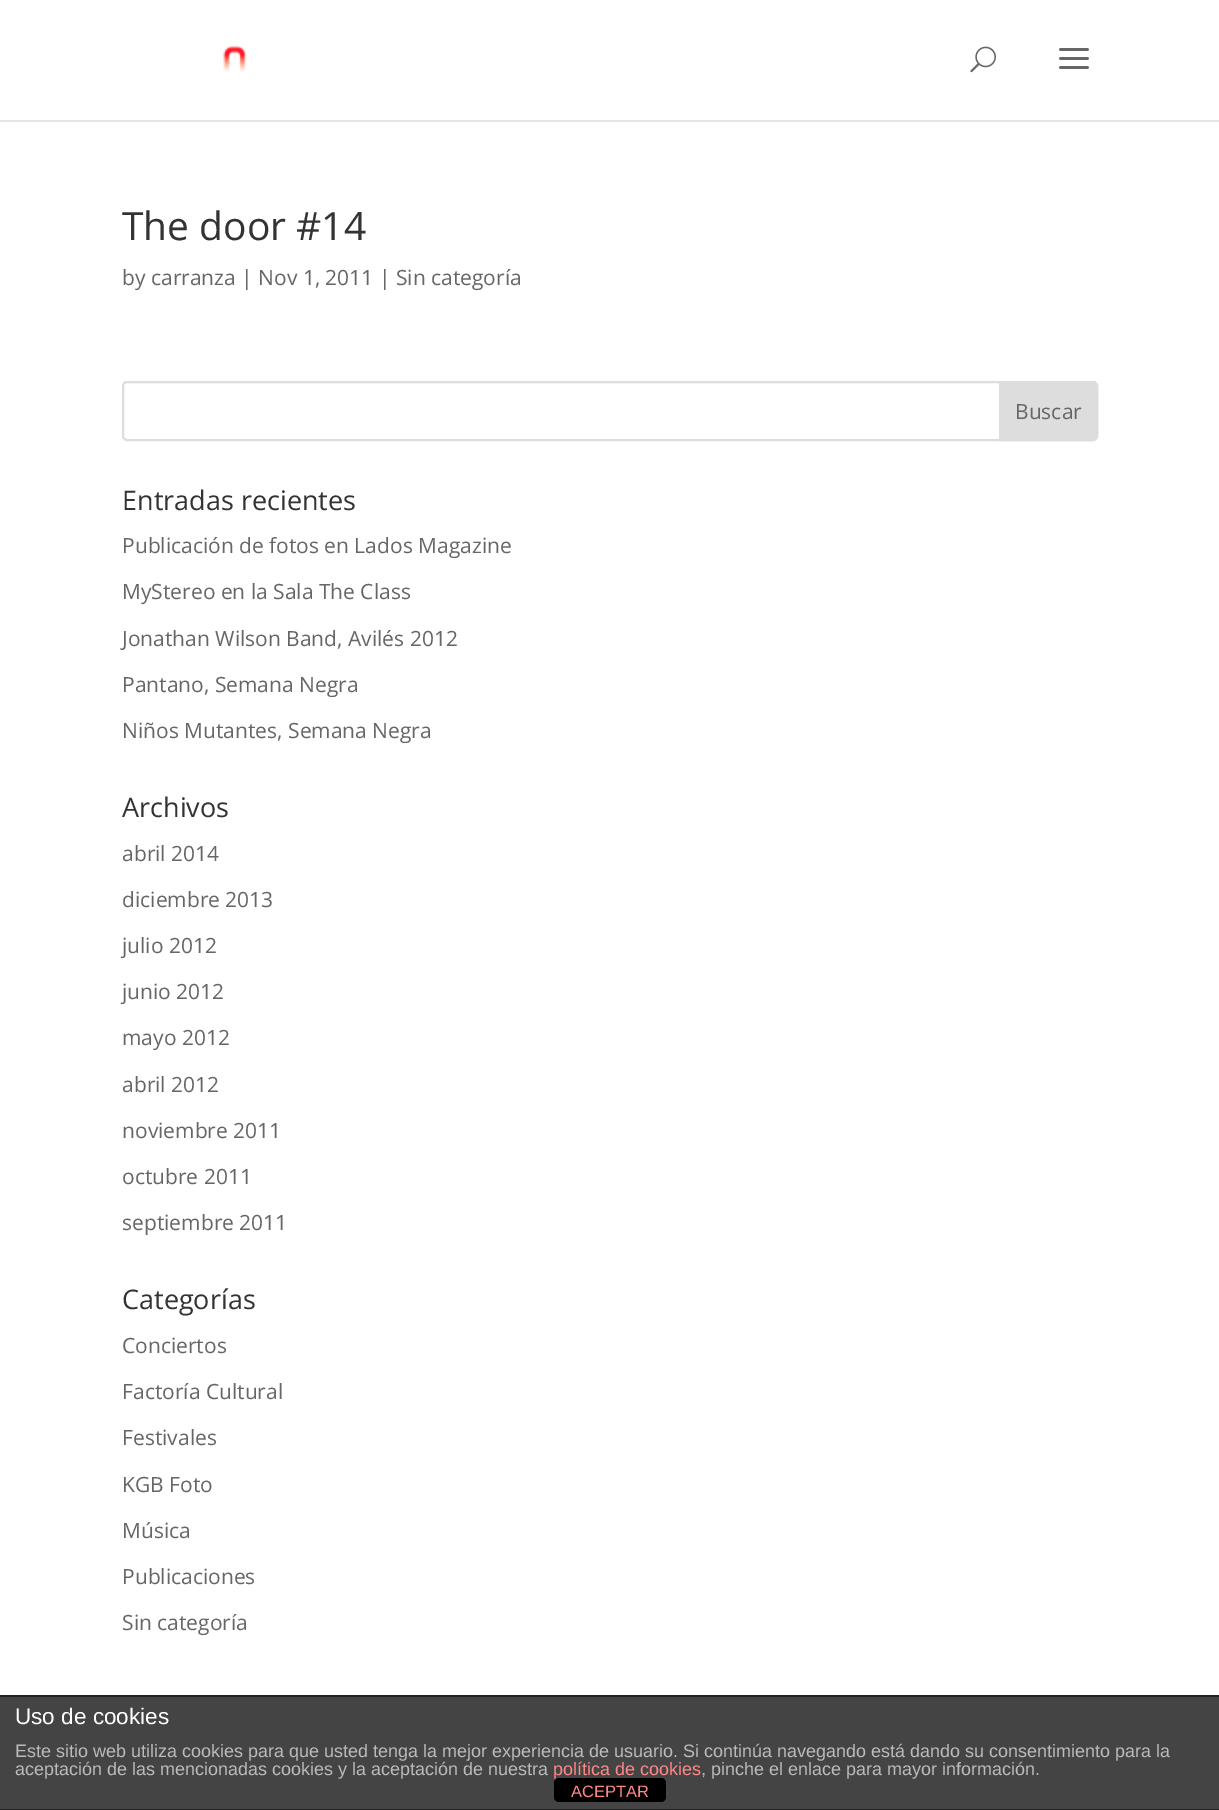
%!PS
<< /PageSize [1219 1810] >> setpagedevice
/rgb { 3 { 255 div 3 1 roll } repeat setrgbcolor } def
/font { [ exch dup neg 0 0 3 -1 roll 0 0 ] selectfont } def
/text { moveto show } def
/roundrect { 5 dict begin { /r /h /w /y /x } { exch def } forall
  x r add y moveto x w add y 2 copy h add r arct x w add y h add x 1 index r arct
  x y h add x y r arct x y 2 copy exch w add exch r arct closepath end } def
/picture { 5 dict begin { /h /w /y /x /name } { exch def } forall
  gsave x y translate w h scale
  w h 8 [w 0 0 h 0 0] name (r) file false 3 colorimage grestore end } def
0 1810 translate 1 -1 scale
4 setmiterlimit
255 255 255 rgb
0 0 1219 1810 rectfill
230 230 230 rgb
0 120 moveto 0 2 rlineto 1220 0 rlineto 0 -120 rlineto 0 118 rlineto closepath fill
(img_01.rgb) 223 45 24 27 picture
(img_02.rgb) 970 46 26 27 picture
(img_03.rgb) 1059 48 30 21 picture
221 221 221 rgb
2 setlinewidth
123 382 974 58 4 roundrect stroke
1000 382 moveto 93 0 rlineto 2 0 4 2 4 4 rcurveto 0 50 rlineto 0 2 -2 4 -4 4 rcurveto -93 0 rlineto closepath gsave fill grestore
stroke
68 68 68 rgb
0 1697 1219 112 rectfill
34 34 34 rgb
0 1695 1219 2 rectfill
0 1809 1219 1 rectfill
0 0 0 rgb
554 1778 112 24 5 roundrect fill
/OpenSans-Regular 39 font
51 51 51 rgb
(The door #14) 122 240 text
/OpenSans-Regular 21 font
102 102 102 rgb
(by carranza | Nov 1, 2011 | Sin categoría) 122 285 text
(Buscar) 1015 419 text
/OpenSans-Regular 27 font
51 51 51 rgb
(Entradas recientes) 122 510 text
/OpenSans-Regular 21 font
102 102 102 rgb
(Publicación de fotos en Lados Magazine) 122 553 text
(MyStereo en la Sala The Class) 122 599 text
(Jonathan Wilson Band, Avilés 2012) 122 646 text
(Pantano, Semana Negra) 122 692 text
(Niños Mutantes, Semana Negra) 122 738 text
/OpenSans-Regular 27 font
51 51 51 rgb
(Archivos) 122 817 text
/OpenSans-Regular 21 font
102 102 102 rgb
(abril 2014) 122 861 text
(diciembre 2013) 122 907 text
(julio 2012) 122 953 text
(junio 2012) 122 999 text
(mayo 2012) 122 1045 text
(abril 2012) 122 1092 text
(noviembre 2011) 122 1138 text
(octubre 2011) 122 1184 text
(septiembre 2011) 122 1230 text
/OpenSans-Regular 27 font
51 51 51 rgb
(Categorías) 122 1309 text
/OpenSans-Regular 21 font
102 102 102 rgb
(Conciertos) 122 1353 text
(Factoría Cultural) 122 1399 text
(Festivales) 122 1445 text
(KGB Foto) 122 1492 text
(Música) 122 1538 text
(Publicaciones) 122 1584 text
(Sin categoría) 122 1630 text
/LiberationSans-Regular 22.5 font
255 255 255 rgb
(Uso de cookies) 15 1724 text
/LiberationSans-Regular 18 font
187 187 187 rgb
(Este sitio web utiliza cookies para que usted tenga la mejor experiencia de usuario. Si continúa navegando está dando su consentimiento para la) 15 1757 text
(aceptación de las mencionadas cookies y la aceptación de nuestra) 15 1775 text
255 136 136 rgb
(política de cookies) 553 1775 text
187 187 187 rgb
(, pinche el enlace para mayor información.) 701 1775 text
/LiberationSans-Regular 16.5 font
255 136 136 rgb
(ACEPTAR) 571 1797 text
showpage
